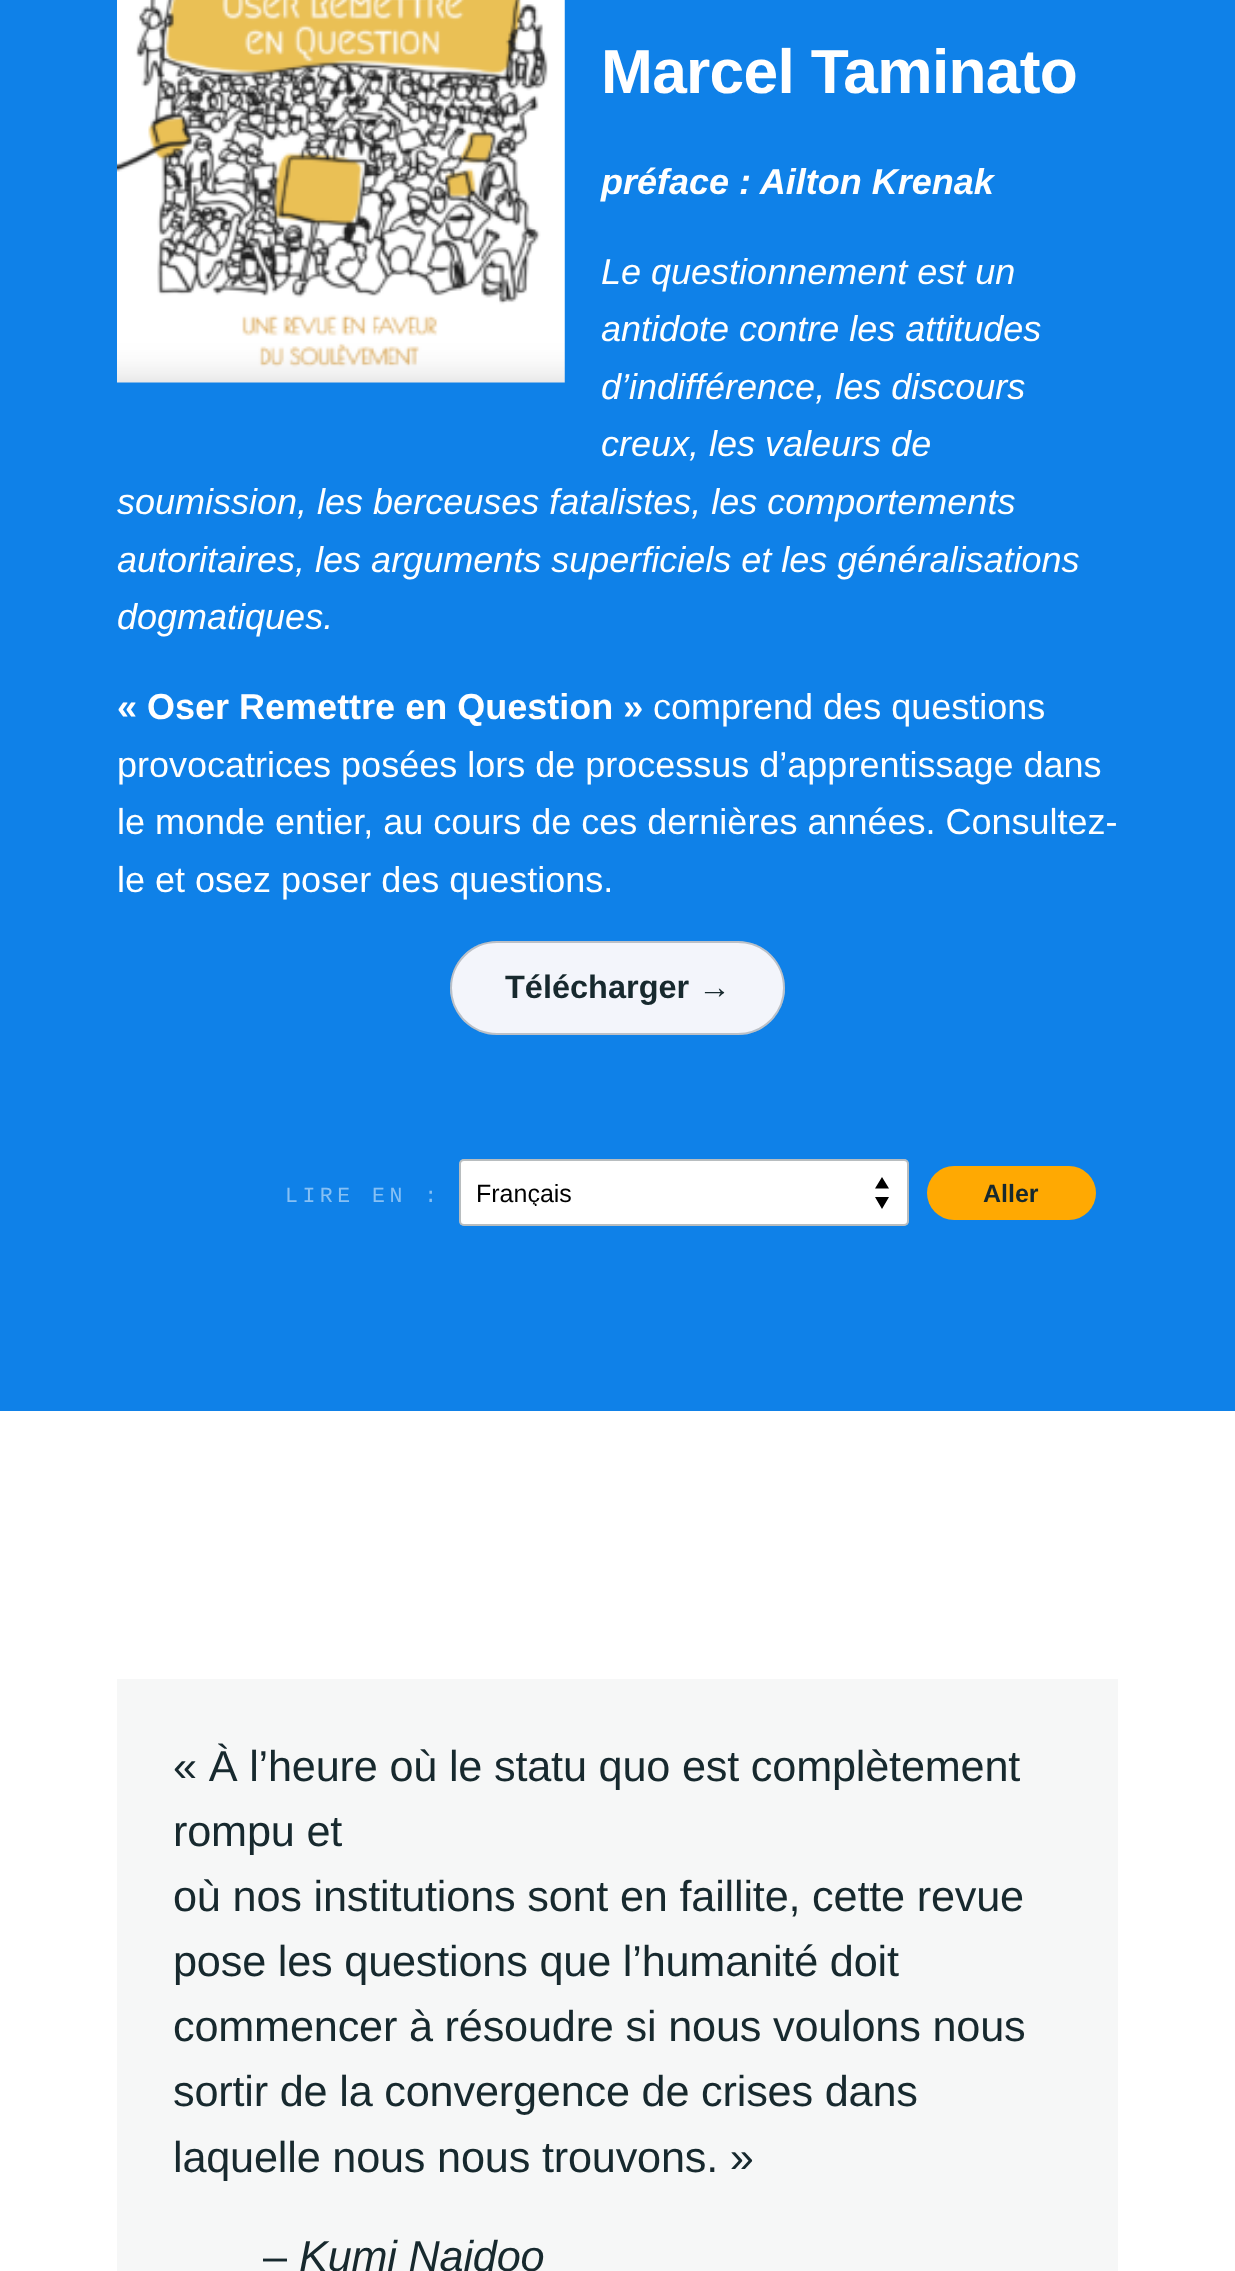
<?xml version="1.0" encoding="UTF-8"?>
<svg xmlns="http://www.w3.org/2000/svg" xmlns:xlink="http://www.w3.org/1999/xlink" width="1235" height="2271">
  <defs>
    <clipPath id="clip1"><rect x="477" y="1179" width="414" height="27" /></clipPath>
  </defs>
  <rect width="100%" height="100%" fill="#0f81e8" />
  <image x="117" y="0" width="448" height="383" xlink:href="image1.png" />
  <rect x="450" y="941" width="335" height="94" rx="47" fill="#f3f5fb" />
  <rect x="451" y="942" width="333" height="92" rx="46" fill="none" stroke="#15242b" stroke-opacity="0.25" stroke-width="2" />
  <rect x="459" y="1159" width="450" height="67" rx="5" fill="#ffffff" />
  <path d="M 882 1177 l -7 11.5 h 14 z m 0 32 l 7 -12 h -14 z" fill="#000000" />
  <rect x="460" y="1160" width="448" height="65" rx="4" fill="none" stroke="#15242b" stroke-opacity="0.3" stroke-width="2" />
  <rect x="927" y="1166" width="169" height="54" rx="27" fill="#ffa902" />
  <rect y="1411" width="1235" height="860" fill="#ffffff" />
  <rect x="117" y="1679" width="1001" height="592" fill="#f6f7f7" />
  <text x="601" y="93" style="font-family: Liberation Sans; font-size: 62.25px; font-weight: bold; letter-spacing: -0.7px; fill: #ffffff">Marcel Taminato</text>
  <text x="601" y="194" style="font-family: Liberation Sans; font-size: 36px; font-weight: bold; font-style: italic; fill: #ffffff">préface : Ailton Krenak</text>
  <text x="601" y="284" style="font-family: Liberation Sans; font-size: 36px; font-style: italic; fill: #ffffff">Le questionnement est un</text>
  <text x="601" y="341" style="font-family: Liberation Sans; font-size: 36px; font-style: italic; fill: #ffffff">antidote contre les attitudes</text>
  <text x="601" y="399" style="font-family: Liberation Sans; font-size: 36px; font-style: italic; fill: #ffffff">d’indifférence, les discours</text>
  <text x="601" y="456" style="font-family: Liberation Sans; font-size: 36px; font-style: italic; fill: #ffffff">creux, les valeurs de</text>
  <text x="117" y="514" style="font-family: Liberation Sans; font-size: 36px; font-style: italic; fill: #ffffff">soumission, les berceuses fatalistes, les comportements</text>
  <text x="117" y="572" style="font-family: Liberation Sans; font-size: 36px; font-style: italic; fill: #ffffff">autoritaires, les arguments superficiels et les généralisations</text>
  <text x="117" y="629" style="font-family: Liberation Sans; font-size: 36px; font-style: italic; fill: #ffffff">dogmatiques.</text>
  <text x="117" y="719" style="font-family: Liberation Sans; font-size: 36px; font-weight: bold; fill: #ffffff">« Oser Remettre en Question »</text>
  <text x="653" y="719" style="font-family: Liberation Sans; font-size: 36px; fill: #ffffff">comprend des questions</text>
  <text x="117" y="777" style="font-family: Liberation Sans; font-size: 36px; fill: #ffffff">provocatrices posées lors de processus d’apprentissage dans</text>
  <text x="117" y="834" style="font-family: Liberation Sans; font-size: 36px; fill: #ffffff">le monde entier, au cours de ces dernières années. Consultez-</text>
  <text x="117" y="892" style="font-family: Liberation Sans; font-size: 36px; fill: #ffffff">le et osez poser des questions.</text>
  <text x="505" y="998" style="font-family: Liberation Sans; font-size: 32.5px; font-weight: bold; fill: #17292e">Télécharger →</text>
  <text x="285" y="1202" style="font-family: Liberation Mono; font-size: 21.5px; letter-spacing: 4.5px; fill: #87c0f4">LIRE EN :</text>
  <g clip-path="url(#clip1)">
    <text x="476" y="1202" style="font-family: Liberation Sans; font-size: 25px; fill: #000000">Français</text>
  </g>
  <text x="983" y="1202" style="font-family: Liberation Sans; font-size: 25px; font-weight: bold; fill: #17292e">Aller</text>
  <text x="173" y="1781" style="font-family: Liberation Sans; font-size: 43.25px; letter-spacing: -0.2px; fill: #17292e">« À l’heure où le statu quo est complètement</text>
  <text x="173" y="1846" style="font-family: Liberation Sans; font-size: 43.25px; letter-spacing: -0.2px; fill: #17292e">rompu et</text>
  <text x="173" y="1911" style="font-family: Liberation Sans; font-size: 43.25px; letter-spacing: -0.2px; fill: #17292e">où nos institutions sont en faillite, cette revue</text>
  <text x="173" y="1976" style="font-family: Liberation Sans; font-size: 43.25px; letter-spacing: -0.2px; fill: #17292e">pose les questions que l’humanité doit</text>
  <text x="173" y="2041" style="font-family: Liberation Sans; font-size: 43.25px; letter-spacing: -0.2px; fill: #17292e">commencer à résoudre si nous voulons nous</text>
  <text x="173" y="2106" style="font-family: Liberation Sans; font-size: 43.25px; letter-spacing: -0.2px; fill: #17292e">sortir de la convergence de crises dans</text>
  <text x="173" y="2172" style="font-family: Liberation Sans; font-size: 43.25px; letter-spacing: -0.2px; fill: #17292e">laquelle nous nous trouvons. »</text>
  <text x="263" y="2271" style="font-family: Liberation Sans; font-size: 43.25px; letter-spacing: -0.2px; fill: #17292e">–</text>
  <text x="299" y="2271" style="font-family: Liberation Sans; font-size: 43.25px; font-style: italic; letter-spacing: -0.2px; fill: #17292e">Kumi Naidoo</text>
</svg>
